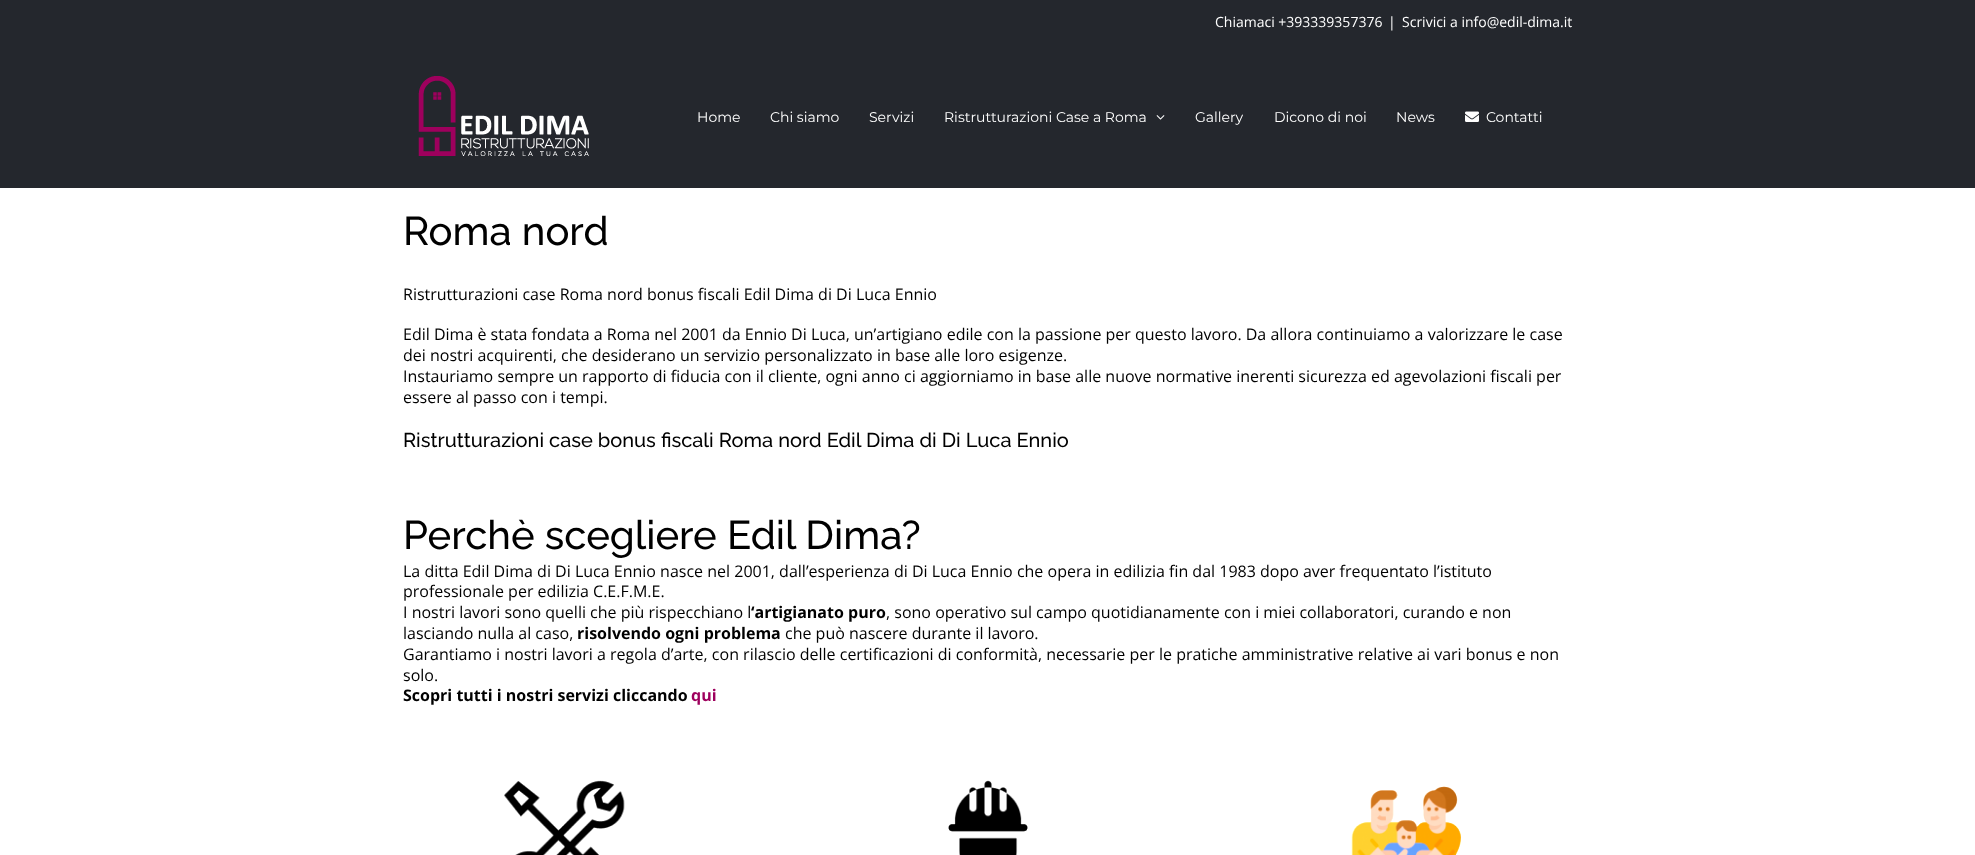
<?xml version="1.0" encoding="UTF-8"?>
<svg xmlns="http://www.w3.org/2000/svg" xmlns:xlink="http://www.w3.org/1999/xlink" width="1975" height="855">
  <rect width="100%" height="100%" fill="#ffffff" />
  <rect width="1975" height="188" fill="#24272d" />
  <image x="418" y="76" width="171" height="80" xlink:href="image1.png" />
  <image x="1156" y="115" width="9" height="5" xlink:href="image2.png" />
  <image x="1465" y="111" width="14" height="11" xlink:href="image3.png" />
  <image x="504" y="780" width="957" height="75" xlink:href="image4.png" />
  <text x="1215" y="27" style="font-family: Open Sans; font-size: 14px; fill: #ffffff">Chiamaci +393339357376</text>
  <text x="1388" y="27" style="font-family: Open Sans; font-size: 14px; fill: #ffffff">|</text>
  <text x="1402" y="27" style="font-family: Open Sans; font-size: 14px; fill: #ffffff">Scrivici a info@edil-dima.it</text>
  <text x="697" y="122" style="font-family: Montserrat; font-size: 14px; font-weight: 100; fill: #ffffff">Home</text>
  <text x="770" y="122" style="font-family: Montserrat; font-size: 14px; font-weight: 100; fill: #ffffff">Chi siamo</text>
  <text x="869" y="122" style="font-family: Montserrat; font-size: 14px; font-weight: 100; fill: #ffffff">Servizi</text>
  <text x="944" y="122" style="font-family: Montserrat; font-size: 14px; font-weight: 100; fill: #ffffff">Ristrutturazioni Case a Roma</text>
  <text x="1195" y="122" style="font-family: Montserrat; font-size: 14px; font-weight: 100; fill: #ffffff">Gallery</text>
  <text x="1274" y="122" style="font-family: Montserrat; font-size: 14px; font-weight: 100; fill: #ffffff">Dicono di noi</text>
  <text x="1396" y="122" style="font-family: Montserrat; font-size: 14px; font-weight: 100; fill: #ffffff">News</text>
  <text x="1486" y="122" style="font-family: Montserrat; font-size: 14px; font-weight: 100; fill: #ffffff">Contatti</text>
  <text x="403" y="245" style="font-family: Raleway; font-size: 40px; font-weight: 100; fill: #000000">Roma nord</text>
  <text x="403" y="300" style="font-family: Open Sans; font-size: 16px; fill: #000000">Ristrutturazioni case Roma nord bonus fiscali Edil Dima di Di Luca Ennio</text>
  <text x="403" y="340" style="font-family: Open Sans; font-size: 16px; fill: #000000">Edil Dima è stata fondata a Roma nel 2001 da Ennio Di Luca, un’artigiano edile con la passione per questo lavoro. Da allora continuiamo a valorizzare le case</text>
  <text x="403" y="361" style="font-family: Open Sans; font-size: 16px; fill: #000000">dei nostri acquirenti, che desiderano un servizio personalizzato in base alle loro esigenze.</text>
  <text x="403" y="382" style="font-family: Open Sans; font-size: 16px; fill: #000000">Instauriamo sempre un rapporto di fiducia con il cliente, ogni anno ci aggiorniamo in base alle nuove normative inerenti sicurezza ed agevolazioni fiscali per</text>
  <text x="403" y="403" style="font-family: Open Sans; font-size: 16px; fill: #000000">essere al passo con i tempi.</text>
  <text x="403" y="447" style="font-family: Raleway; font-size: 20px; font-weight: 100; fill: #000000">Ristrutturazioni case bonus fiscali Roma nord Edil Dima di Di Luca Ennio</text>
  <text x="403" y="549" style="font-family: Raleway; font-size: 40px; font-weight: 100; fill: #000000">Perchè scegliere Edil Dima?</text>
  <text x="403" y="577" style="font-family: Open Sans; font-size: 16px; fill: #000000">La ditta Edil Dima di Di Luca Ennio nasce nel 2001, dall’esperienza di Di Luca Ennio che opera in edilizia fin dal 1983 dopo aver frequentato l’istituto</text>
  <text x="403" y="597" style="font-family: Open Sans; font-size: 16px; fill: #000000">professionale per edilizia C.E.F.M.E.</text>
  <text x="403" y="618" style="font-family: Open Sans; font-size: 16px; fill: #000000">I nostri lavori sono quelli che più rispecchiano l</text>
  <text x="751" y="618" style="font-family: Open Sans; font-size: 16px; font-weight: bold; fill: #000000">‘artigianato puro</text>
  <text x="886" y="618" style="font-family: Open Sans; font-size: 16px; fill: #000000">, sono operativo sul campo quotidianamente con i miei collaboratori, curando e non</text>
  <text x="403" y="639" style="font-family: Open Sans; font-size: 16px; fill: #000000">lasciando nulla al caso,</text>
  <text x="577" y="639" style="font-family: Open Sans; font-size: 16px; font-weight: bold; fill: #000000">risolvendo ogni problema</text>
  <text x="785" y="639" style="font-family: Open Sans; font-size: 16px; fill: #000000">che può nascere durante il lavoro.</text>
  <text x="403" y="660" style="font-family: Open Sans; font-size: 16px; fill: #000000">Garantiamo i nostri lavori a regola d’arte, con rilascio delle certificazioni di conformità, necessarie per le pratiche amministrative relative ai vari bonus e non</text>
  <text x="403" y="681" style="font-family: Open Sans; font-size: 16px; fill: #000000">solo.</text>
  <text x="403" y="701" style="font-family: Open Sans; font-size: 16px; font-weight: bold; fill: #000000">Scopri tutti i nostri servizi cliccando</text>
  <text x="691" y="701" style="font-family: Open Sans; font-size: 16px; font-weight: bold; fill: #9e005d">qui</text>
</svg>
